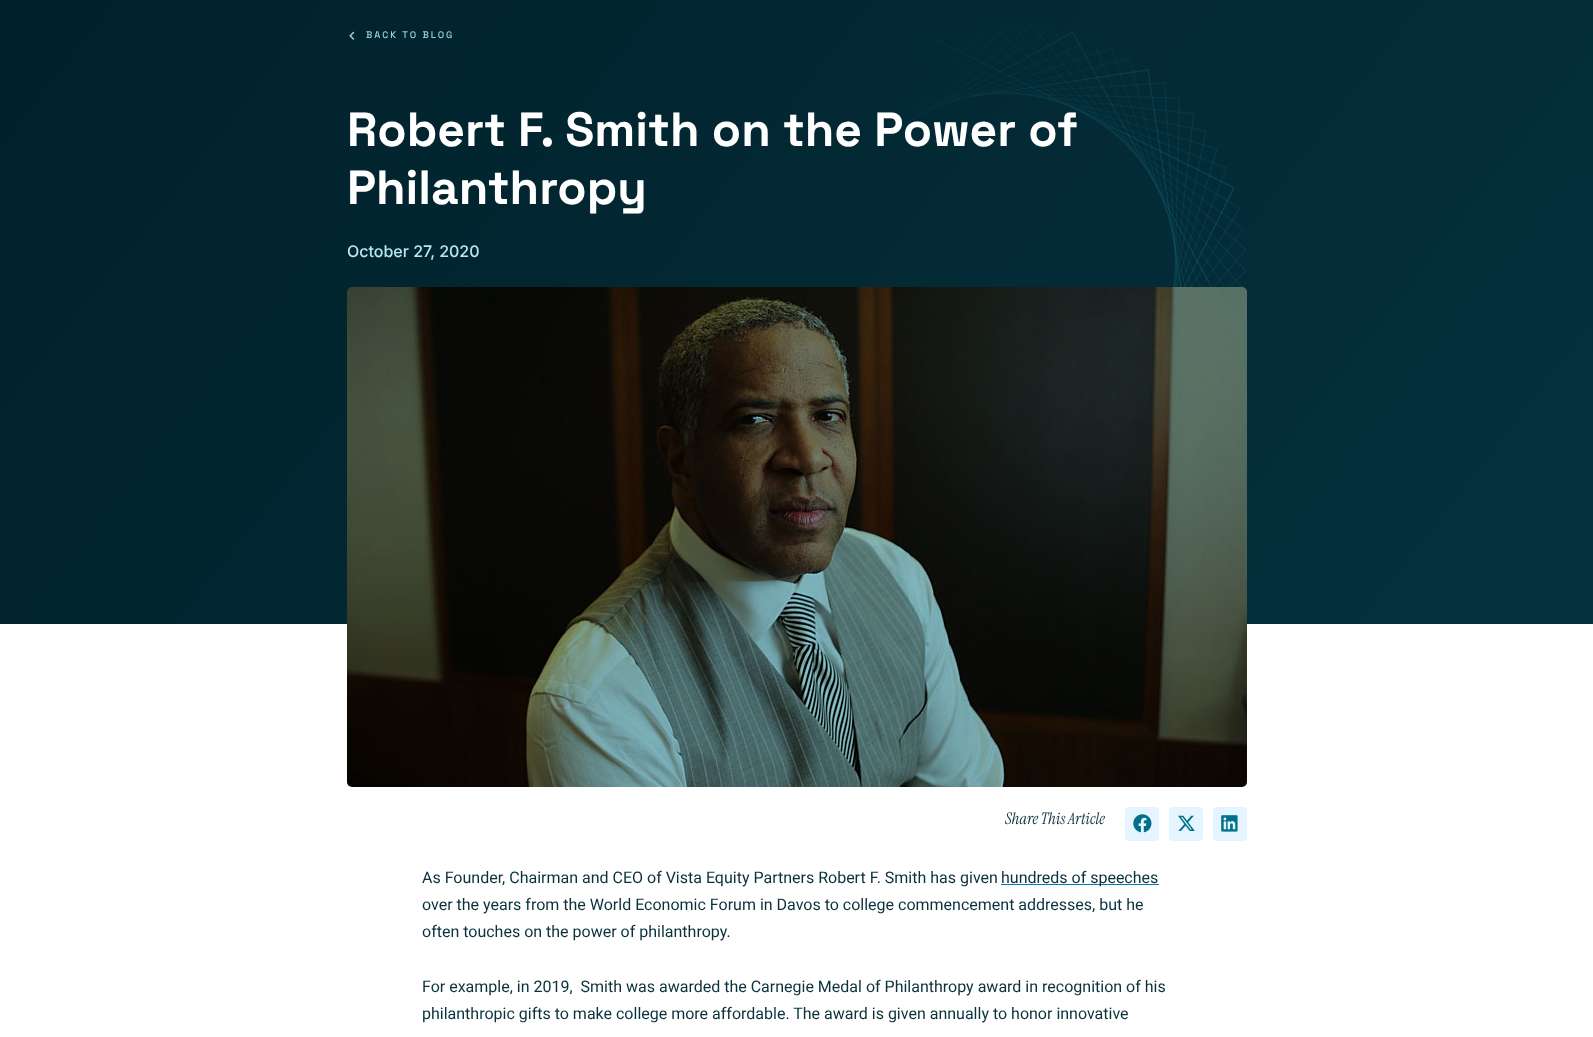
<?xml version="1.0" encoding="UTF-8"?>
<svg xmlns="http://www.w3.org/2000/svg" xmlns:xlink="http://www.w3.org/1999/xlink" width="1593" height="1037">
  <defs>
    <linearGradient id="g1" gradientUnits="userSpaceOnUse" x1="113" y1="-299" x2="1480" y2="769"><stop offset="0" stop-color="#002029" /><stop offset="1" stop-color="#05313e" /></linearGradient>
  </defs>
  <rect width="100%" height="100%" fill="#ffffff" />
  <rect width="1593" height="624" fill="url(#g1)" />
  <image x="874" y="23" width="373" height="265" xlink:href="image1.png" />
  <image x="349" y="31" width="6" height="9" xlink:href="image2.png" />
  <image x="347" y="287" width="900" height="500" xlink:href="image3.png" />
  <rect x="1125" y="807" width="34" height="34" rx="4" fill="#e4f5ff" />
  <image x="1133" y="814" width="19" height="19" xlink:href="image4.png" />
  <rect x="1169" y="807" width="34" height="34" rx="4" fill="#e4f5ff" />
  <image x="1178" y="815" width="17" height="16" xlink:href="image5.png" />
  <rect x="1213" y="807" width="34" height="34" rx="4" fill="#e4f5ff" />
  <image x="1221" y="815" width="17" height="17" xlink:href="image6.png" />
  <rect x="1001" y="884" width="158" height="1" fill="#007bc2" />
  <text x="366" y="38" style="font-family: Space Grotesk; font-size: 9.5px; font-weight: 500; letter-spacing: 2px; fill: #97cfda">BACK TO BLOG</text>
  <text x="347" y="146" style="font-family: Space Grotesk; font-size: 48px; font-weight: bold; fill: #ffffff">Robert F. Smith on the Power of</text>
  <text x="347" y="204" style="font-family: Space Grotesk; font-size: 48px; font-weight: bold; fill: #ffffff">Philanthropy</text>
  <text x="347" y="257" style="font-family: Inter; font-size: 16px; font-weight: 500; fill: #b8e7f4">October 27, 2020</text>
  <text x="1005" y="824" style="font-family: Instrument Serif; font-size: 16px; font-style: italic; fill: #0a323c">Share This Article</text>
  <text x="422" y="883" style="font-family: Roboto; font-size: 16px; fill: #0a323c">As Founder, Chairman and CEO of Vista Equity Partners Robert F. Smith has given</text>
  <text x="1001" y="883" style="font-family: Roboto; font-size: 16px; fill: #0a323c">hundreds of speeches</text>
  <text x="422" y="910" style="font-family: Roboto; font-size: 16px; fill: #0a323c">over the years from the World Economic Forum in Davos to college commencement addresses, but he</text>
  <text x="422" y="937" style="font-family: Roboto; font-size: 16px; fill: #0a323c">often touches on the power of philanthropy.</text>
  <text x="422" y="992" style="font-family: Roboto; font-size: 16px; fill: #0a323c" xml:space="preserve">For example, in 2019,  Smith was awarded the Carnegie Medal of Philanthropy award in recognition of his</text>
  <text x="422" y="1019" style="font-family: Roboto; font-size: 16px; fill: #0a323c">philanthropic gifts to make college more affordable. The award is given annually to honor innovative</text>
</svg>
